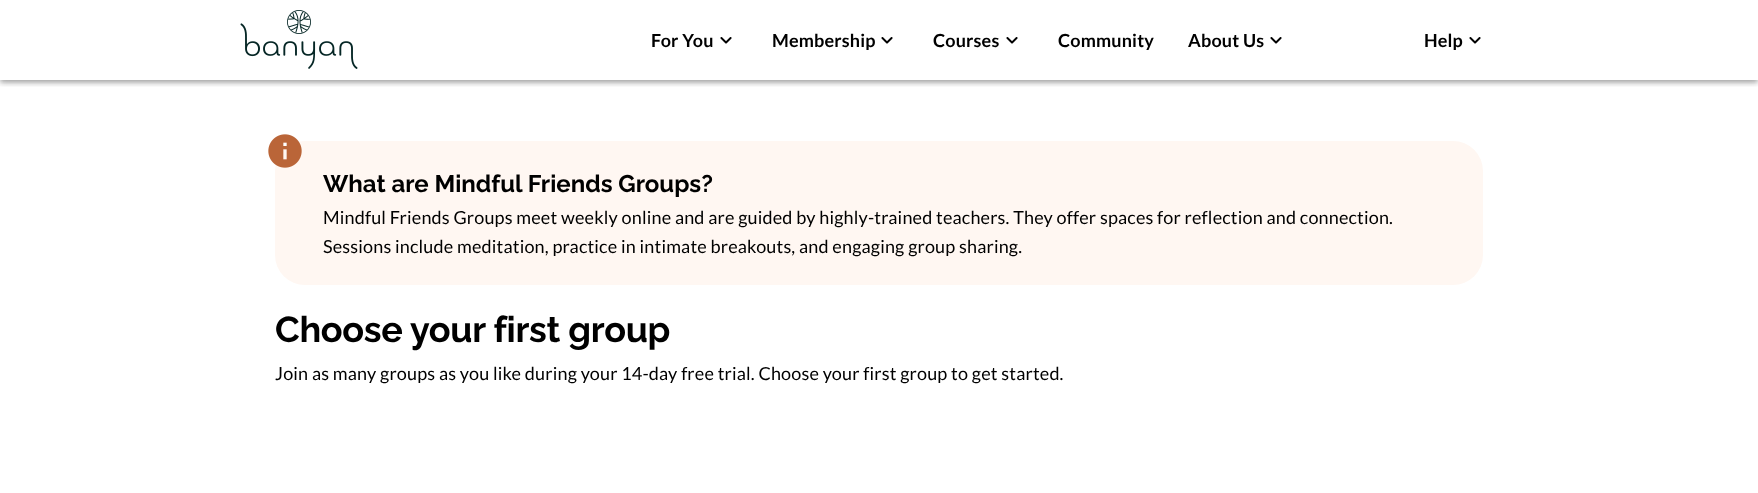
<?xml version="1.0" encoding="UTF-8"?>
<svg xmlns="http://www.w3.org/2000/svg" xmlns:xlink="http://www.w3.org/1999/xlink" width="1758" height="493">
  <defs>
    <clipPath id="clip1"><rect x="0" y="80" width="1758" height="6" /></clipPath>
    <clipPath id="clip2"><rect x="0" y="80" width="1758" height="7" /></clipPath>
    <clipPath id="clip3"><rect x="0" y="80" width="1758" height="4" /></clipPath>
  </defs>
  <rect width="100%" height="100%" fill="#ffffff" />
  <g clip-path="url(#clip1)">
    <rect y="1" width="1758" height="80" fill="#000000" fill-opacity="0.12" filter="blur(5px)" />
  </g>
  <g clip-path="url(#clip2)">
    <rect y="4" width="1758" height="80" fill="#000000" fill-opacity="0.14" filter="blur(2.5px)" />
  </g>
  <g clip-path="url(#clip3)">
    <rect x="1" y="3" width="1756" height="78" fill="#000000" fill-opacity="0.2" filter="blur(2px)" />
  </g>
  <image x="240" y="10" width="118" height="59" xlink:href="image1.png" />
  <image x="720" y="37" width="12" height="7" xlink:href="image2.png" />
  <image x="881" y="37" width="12" height="7" xlink:href="image2.png" />
  <image x="1006" y="37" width="12" height="7" xlink:href="image2.png" />
  <image x="1270" y="37" width="12" height="7" xlink:href="image2.png" />
  <image x="1469" y="37" width="12" height="7" xlink:href="image2.png" />
  <rect x="275" y="141" width="1208" height="144" rx="30" fill="#fff7f2" />
  <image x="268" y="134" width="34" height="34" xlink:href="image3.png" />
  <text x="651" y="47" style="font-family: Lato; font-size: 18px; font-weight: bold; letter-spacing: 0.17px; fill: #000000">For You</text>
  <text x="772" y="47" style="font-family: Lato; font-size: 18px; font-weight: bold; letter-spacing: 0.17px; fill: #000000">Membership</text>
  <text x="933" y="47" style="font-family: Lato; font-size: 18px; font-weight: bold; letter-spacing: 0.17px; fill: #000000">Courses</text>
  <text x="1058" y="47" style="font-family: Lato; font-size: 18px; font-weight: bold; letter-spacing: 0.17px; fill: #000000">Community</text>
  <text x="1188" y="47" style="font-family: Lato; font-size: 18px; font-weight: bold; letter-spacing: 0.17px; fill: #000000">About Us</text>
  <text x="1424" y="47" style="font-family: Lato; font-size: 18px; font-weight: bold; letter-spacing: 0.17px; fill: #000000">Help</text>
  <text x="323" y="192" style="font-family: Raleway; font-size: 24px; font-weight: bold; fill: #000000">What are Mindful Friends Groups?</text>
  <text x="323" y="224" style="font-family: Lato; font-size: 18px; letter-spacing: 0.17px; fill: #000000">Mindful Friends Groups meet weekly online and are guided by highly-trained teachers. They offer spaces for reflection and connection.</text>
  <text x="323" y="253" style="font-family: Lato; font-size: 18px; letter-spacing: 0.17px; fill: #000000">Sessions include meditation, practice in intimate breakouts, and engaging group sharing.</text>
  <text x="275" y="342" style="font-family: Raleway; font-size: 36px; font-weight: bold; letter-spacing: -0.3px; fill: #000000">Choose your first group</text>
  <text x="275" y="380" style="font-family: Lato; font-size: 18px; letter-spacing: 0.17px; fill: #000000">Join as many groups as you like during your 14-day free trial. Choose your first group to get started.</text>
</svg>
